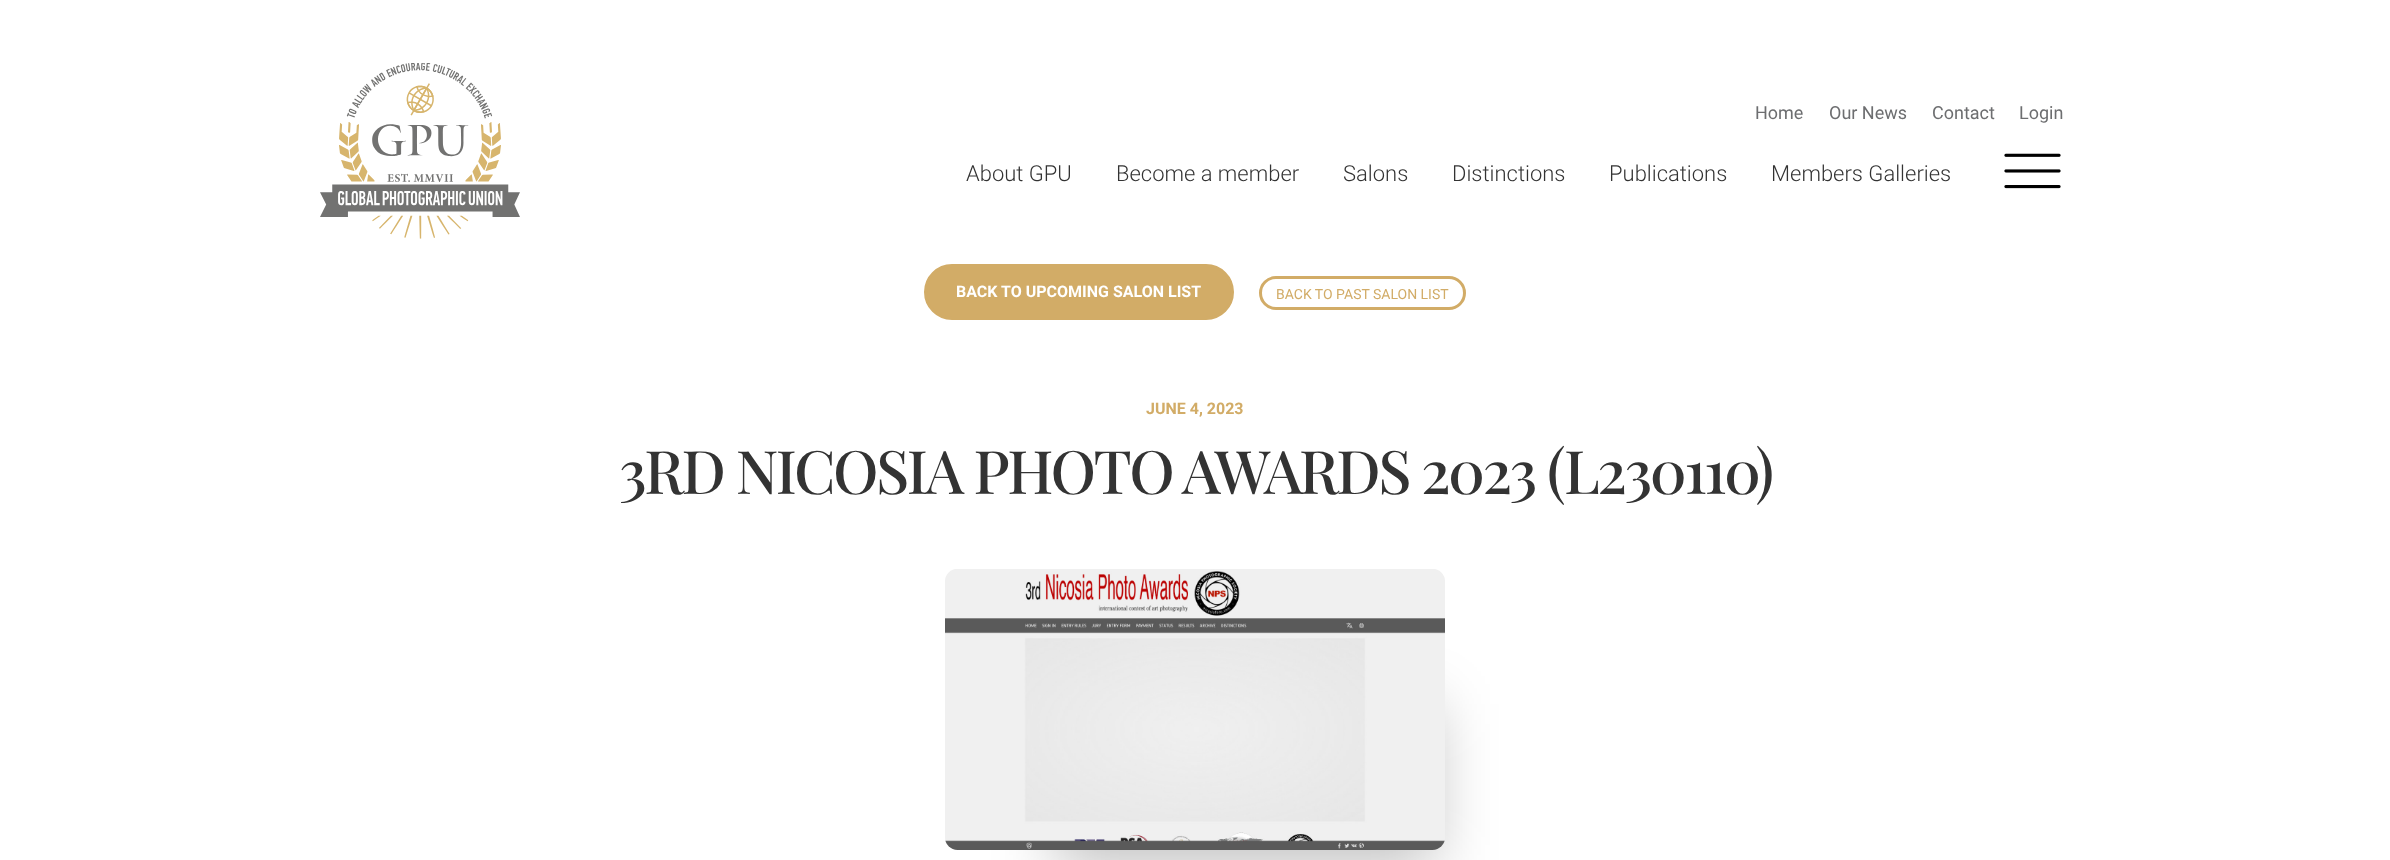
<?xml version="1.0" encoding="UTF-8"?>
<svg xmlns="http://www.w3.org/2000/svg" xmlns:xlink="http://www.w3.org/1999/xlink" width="2390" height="860">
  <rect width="100%" height="100%" fill="#ffffff" />
  <image x="320" y="63" width="200" height="176" xlink:href="image1.png" />
  <image x="2004" y="153" width="57" height="36" xlink:href="image2.png" />
  <rect x="925.5" y="265.5" width="307" height="53" rx="26.5" fill="#d2ac67" stroke="#d2ac67" stroke-width="3" />
  <rect x="1260.5" y="277.5" width="204" height="31" rx="15.5" fill="none" stroke="#d2ac67" stroke-width="3" />
  <rect x="1055" y="704" width="380" height="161" fill="#000000" fill-opacity="0.25" filter="blur(30px)" />
  <image x="945" y="569" width="500" height="281" xlink:href="image3.png" />
  <text x="1755" y="119" style="font-family: Roboto; font-size: 18px; fill: #6d6e70">Home</text>
  <text x="1829" y="119" style="font-family: Roboto; font-size: 18px; fill: #6d6e70">Our News</text>
  <text x="1932" y="119" style="font-family: Roboto; font-size: 18px; fill: #6d6e70">Contact</text>
  <text x="2019" y="119" style="font-family: Roboto; font-size: 18px; fill: #6d6e70">Login</text>
  <text x="966" y="181" style="font-family: Roboto; font-size: 22px; font-weight: 300; fill: #333333">About GPU</text>
  <text x="1116" y="181" style="font-family: Roboto; font-size: 22px; font-weight: 300; fill: #333333">Become a member</text>
  <text x="1343" y="181" style="font-family: Roboto; font-size: 22px; font-weight: 300; fill: #333333">Salons</text>
  <text x="1452" y="181" style="font-family: Roboto; font-size: 22px; font-weight: 300; fill: #333333">Distinctions</text>
  <text x="1609" y="181" style="font-family: Roboto; font-size: 22px; font-weight: 300; fill: #333333">Publications</text>
  <text x="1771" y="181" style="font-family: Roboto; font-size: 22px; font-weight: 300; fill: #333333">Members Galleries</text>
  <text x="956" y="297" style="font-family: Roboto; font-size: 16px; font-weight: bold; fill: #ffffff">BACK TO UPCOMING SALON LIST</text>
  <text x="1276" y="299" style="font-family: Roboto; font-size: 14px; fill: #d2ac67">BACK TO PAST SALON LIST</text>
  <text x="1146" y="414" style="font-family: Roboto; font-size: 16px; font-weight: bold; fill: #d2ac67">JUNE 4, 2023</text>
  <text x="619" y="494" style="font-family: Playfair Display; font-size: 60px; font-weight: 500; letter-spacing: -2.5px; fill: #333333">3RD NICOSIA PHOTO AWARDS 2023 (L230110)</text>
</svg>
